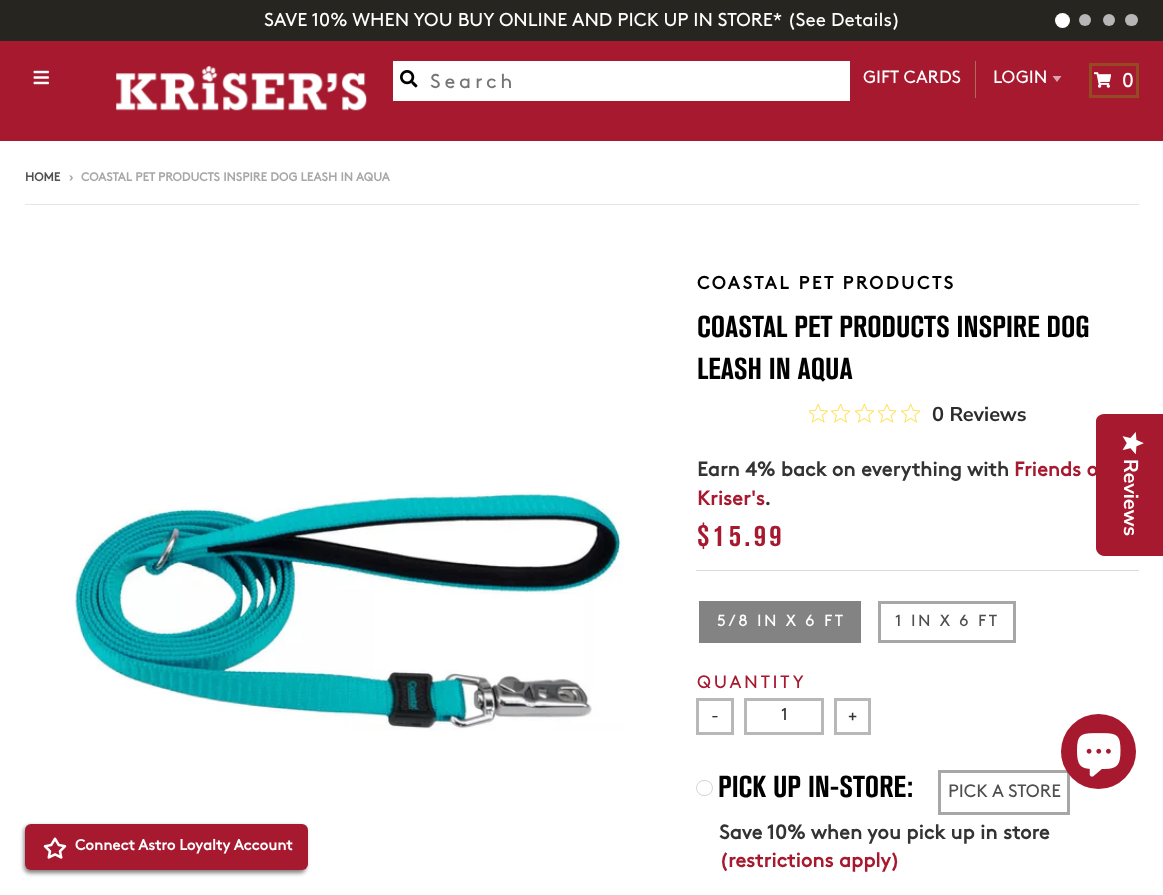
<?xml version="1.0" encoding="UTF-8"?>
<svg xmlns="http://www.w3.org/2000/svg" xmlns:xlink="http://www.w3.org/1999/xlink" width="1163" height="895">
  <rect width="100%" height="100%" fill="#ffffff" />
  <rect width="1163" height="41" fill="#27251f" />
  <circle cx="1062.5" cy="20.5" r="7.5" fill="#ffffff" />
  <circle cx="1085" cy="20" r="6" fill="#b6b6b6" />
  <circle cx="1109" cy="20" r="6" fill="#b6b6b6" />
  <rect x="1125" y="14" width="13" height="12" rx="6" fill="#b6b6b6" />
  <rect y="41" width="1163" height="100" fill="#a6192e" />
  <image x="33" y="70" width="16" height="15" xlink:href="image1.png" />
  <image x="116" y="66" width="251" height="45" xlink:href="image2.png" />
  <rect x="393" y="61" width="457" height="40" fill="#ffffff" />
  <image x="400" y="70" width="18" height="18" xlink:href="image3.png" />
  <rect x="975" y="61" width="1" height="37" fill="#a96f4f" />
  <path d="M 1052.5 76 l 4.5 6 l 4.5 -6 z" fill="#dba3ab" />
  <rect x="1090.5" y="64.5" width="47" height="32" fill="none" stroke="#944b23" stroke-width="3" />
  <image x="1094" y="72" width="17" height="16" xlink:href="image4.png" />
  <rect x="25" y="204" width="1114" height="1" fill="#e5e5e5" />
  <image x="73" y="492" width="550" height="239" xlink:href="image5.png" />
  <image x="809" y="404" width="19" height="19" xlink:href="image6.png" />
  <image x="831" y="404" width="19" height="19" xlink:href="image7.png" />
  <image x="855" y="404" width="19" height="19" xlink:href="image8.png" />
  <image x="878" y="404" width="18" height="19" xlink:href="image9.png" />
  <image x="901" y="404" width="19" height="19" xlink:href="image7.png" />
  <rect x="696" y="570" width="443" height="1" fill="#dadada" />
  <rect x="699" y="601" width="162" height="42" fill="#838383" />
  <rect x="879.5" y="602.5" width="135" height="39" fill="none" stroke="#a7a7a7" stroke-width="3" />
  <rect x="697.5" y="699.5" width="35" height="34" fill="none" stroke="#b8b8b8" stroke-width="3" />
  <rect x="745.5" y="699.5" width="77" height="34" fill="none" stroke="#b8b8b8" stroke-width="3" />
  <rect x="835.5" y="699.5" width="34" height="34" fill="none" stroke="#b8b8b8" stroke-width="3" />
  <rect x="696.5" y="780.5" width="16" height="15" rx="7.5" fill="none" stroke="#d6d6d6" />
  <rect x="939.5" y="771.5" width="129" height="42" fill="none" stroke="#a7a7a7" stroke-width="3" />
  <path d="M 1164 414 v 142 h -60 c -4 0 -8 -4 -8 -8 v -127 c 0 -4 4 -7 8 -7 z" fill="#a6192e" />
  <image x="1122" y="432" width="22" height="23" xlink:href="image10.png" />
  <circle cx="1098.5" cy="751.5" r="37.5" fill="#a6192e" />
  <image x="1077" y="733" width="44" height="44" xlink:href="image11.png" />
  <rect x="24" y="826" width="282" height="47" rx="6" fill="#000000" fill-opacity="0.5" filter="blur(2px)" />
  <rect x="25" y="824" width="283" height="46" rx="6" fill="#a6192e" />
  <image x="43" y="837" width="24" height="22" xlink:href="image12.png" />
  <text x="264" y="26" style="font-family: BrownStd; font-size: 18.75px; fill: #ffffff">SAVE 10% WHEN YOU BUY ONLINE AND PICK UP IN STORE* (See Details)</text>
  <text x="430" y="88" style="font-family: BrownStd; font-size: 20px; letter-spacing: 3.75px; fill: #757575">Search</text>
  <text x="863" y="83" style="font-family: BrownStd; font-size: 17.75px; fill: #ffffff">GIFT CARDS</text>
  <text x="993" y="83" style="font-family: BrownStd; font-size: 17.75px; fill: #ffffff">LOGIN</text>
  <text x="1122" y="87" style="font-family: BrownStd; font-size: 20px; letter-spacing: 2.5px; fill: #ffffff">0</text>
  <text x="25" y="181" style="font-family: BrownStd; font-size: 12px; font-weight: bold; fill: #4f4f4f">HOME</text>
  <text x="69" y="181" style="font-family: BrownStd; font-size: 12px; font-weight: bold; fill: #a7a7a7">›</text>
  <text x="81" y="181" style="font-family: BrownStd; font-size: 12px; font-weight: bold; fill: #a7a7a7">COASTAL PET PRODUCTS INSPIRE DOG LEASH IN AQUA</text>
  <text x="697" y="289" style="font-family: BrownStd; font-size: 18px; font-weight: bold; letter-spacing: 2.5px; fill: #000000">COASTAL PET PRODUCTS</text>
  <text x="697" y="337" style="font-family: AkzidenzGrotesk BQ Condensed; font-size: 30px; font-weight: bold; fill: #000000">COASTAL PET PRODUCTS INSPIRE DOG</text>
  <text x="697" y="379" style="font-family: AkzidenzGrotesk BQ Condensed; font-size: 30px; font-weight: bold; fill: #000000">LEASH IN AQUA</text>
  <text x="932" y="421" style="font-family: Nunito Sans; font-size: 20px; font-weight: 200; fill: #2c2c2c">0 Reviews</text>
  <text x="697" y="476" style="font-family: BrownStd; font-size: 20px; font-weight: bold; fill: #333333">Earn 4% back on everything with</text>
  <text x="1014" y="476" style="font-family: BrownStd; font-size: 20px; font-weight: bold; fill: #a6192e">Friends o</text>
  <text x="697" y="505" style="font-family: BrownStd; font-size: 20px; font-weight: bold; fill: #a6192e">Kriser's</text>
  <text x="764" y="505" style="font-family: BrownStd; font-size: 20px; font-weight: bold; fill: #333333">.</text>
  <text x="697" y="546" style="font-family: AkzidenzGrotesk BQ Condensed; font-size: 30px; font-weight: bold; letter-spacing: 3.75px; fill: #a6192e">$15.99</text>
  <text x="717" y="626" style="font-family: BrownStd; font-size: 16.25px; letter-spacing: 2.5px; fill: #ffffff">5/8 IN X 6 FT</text>
  <text x="895" y="626" style="font-family: BrownStd; font-size: 16.25px; letter-spacing: 2.5px; fill: #4f4f4f">1 IN X 6 FT</text>
  <text x="697" y="688" style="font-family: BrownStd; font-size: 18px; letter-spacing: 2.75px; fill: #a6192e">QUANTITY</text>
  <text x="711" y="721" style="font-family: BrownStd; font-size: 17px; fill: #333333">-</text>
  <text x="781" y="720" style="font-family: BrownStd; font-size: 17px; fill: #333333">1</text>
  <text x="848" y="721" style="font-family: BrownStd; font-size: 17px; fill: #333333">+</text>
  <text x="718" y="797" style="font-family: AkzidenzGrotesk BQ Condensed; font-size: 30px; font-weight: bold; fill: #000000">PICK UP IN-STORE:</text>
  <text x="948" y="797" style="font-family: BrownStd; font-size: 18px; fill: #4f4f4f">PICK A STORE</text>
  <text x="719" y="839" style="font-family: BrownStd; font-size: 20px; font-weight: bold; fill: #333333">Save 10% when you pick up in store</text>
  <text x="719" y="867" style="font-family: BrownStd; font-size: 20px; font-weight: bold; fill: #a6192e">(restrictions apply)</text>
  <text x="1124" y="459" transform="rotate(90 1124 459)" style="font-family: Nunito Sans; font-size: 20px; font-weight: 200; fill: #ffffff">Reviews</text>
  <text x="75" y="850" style="font-family: BrownStd; font-size: 15px; font-weight: bold; fill: #ffffff">Connect Astro Loyalty Account</text>
</svg>
